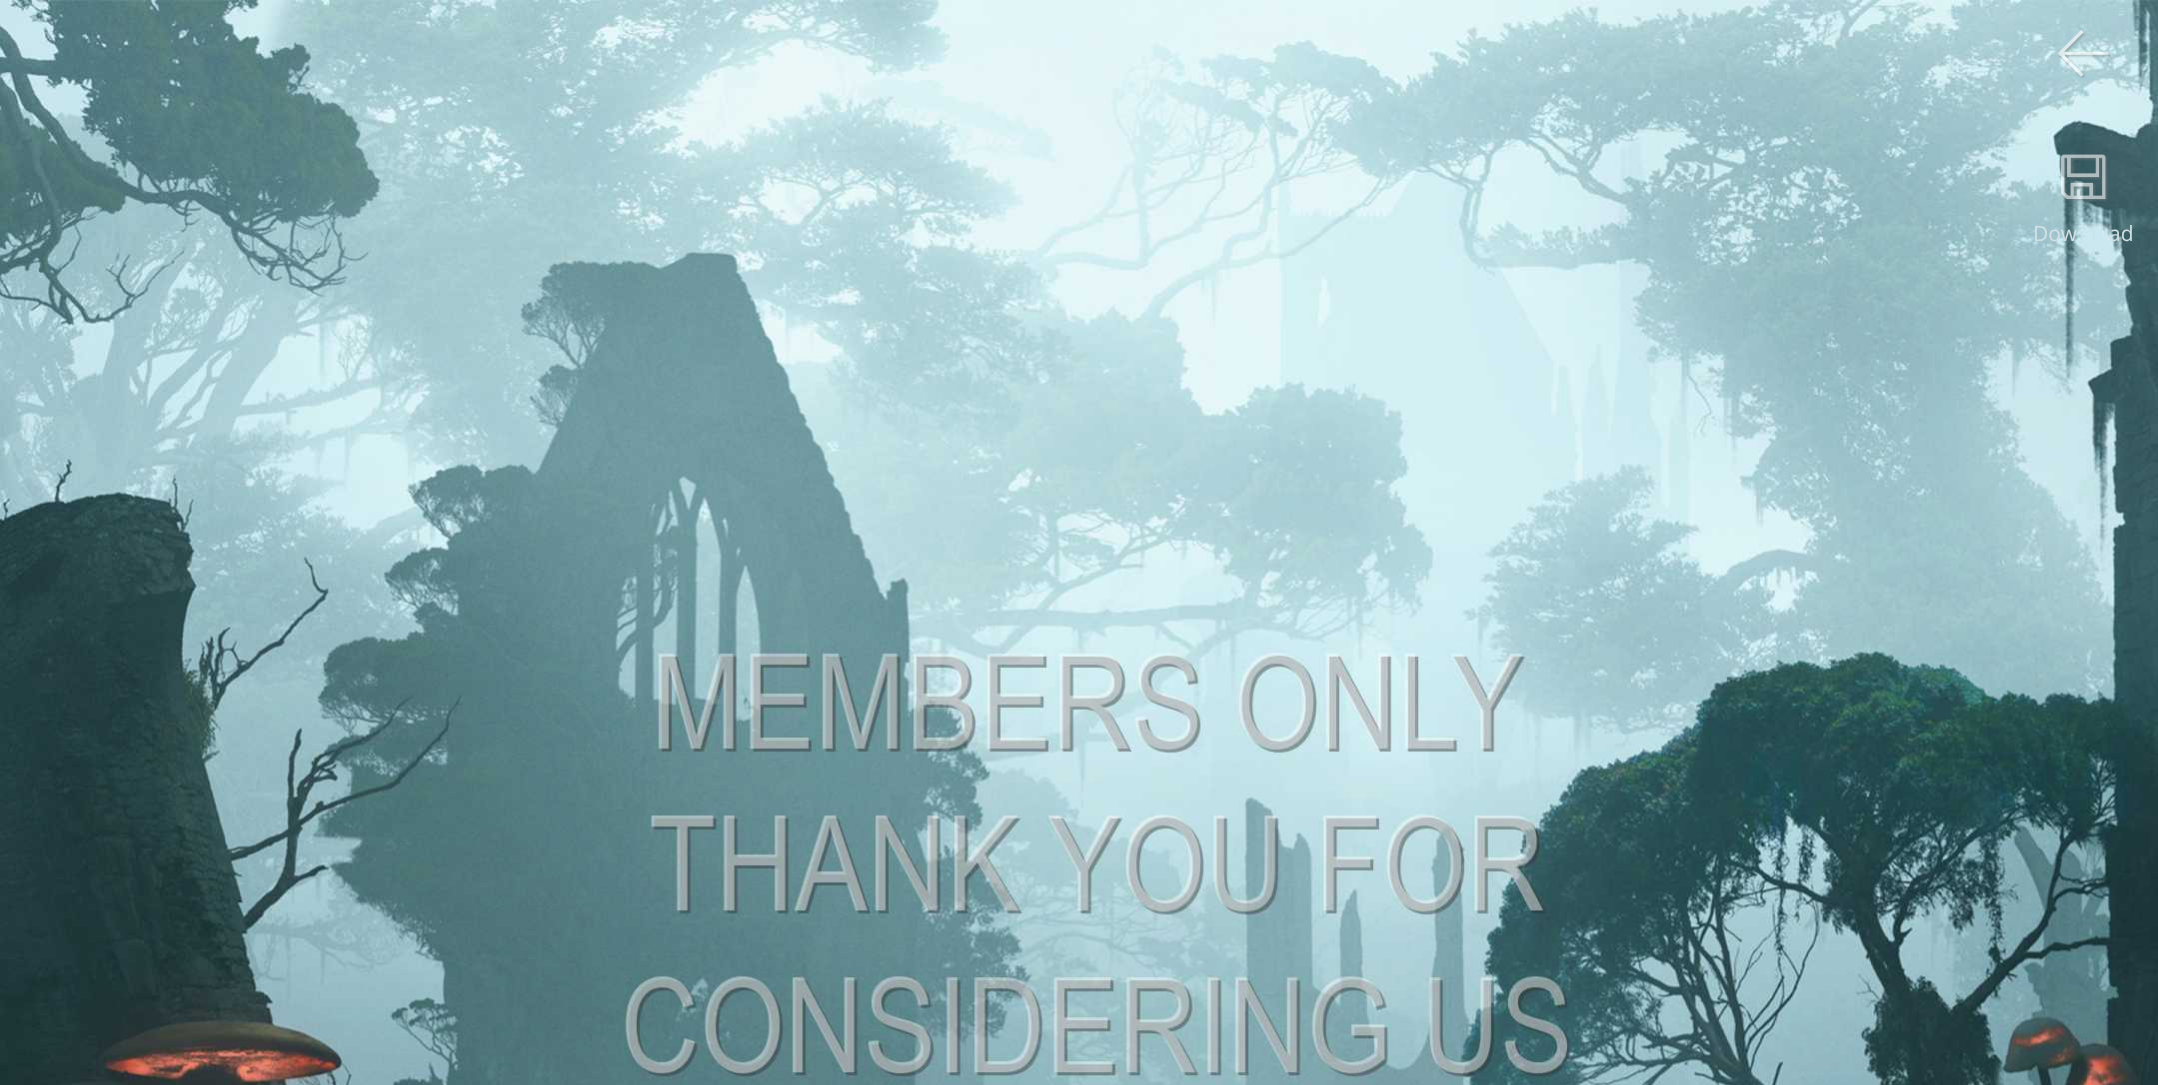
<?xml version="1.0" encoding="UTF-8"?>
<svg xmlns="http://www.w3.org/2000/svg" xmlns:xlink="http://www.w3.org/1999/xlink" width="2158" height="1085">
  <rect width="100%" height="100%" fill="#ffffff" />
  <image x="0" y="0" width="2158" height="1085" xlink:href="image1.png" />
  <image x="2057" y="29" width="54" height="50" xlink:href="image2.png" />
  <image x="2060" y="154" width="48" height="48" xlink:href="image3.png" />
  <text x="2033" y="241" style="font-family: Open Sans; font-size: 21px; fill: #d3e1e4">Dow</text>
  <text x="2109" y="241" style="font-family: Open Sans; font-size: 21px; fill: #d3e1e4">ad</text>
</svg>
